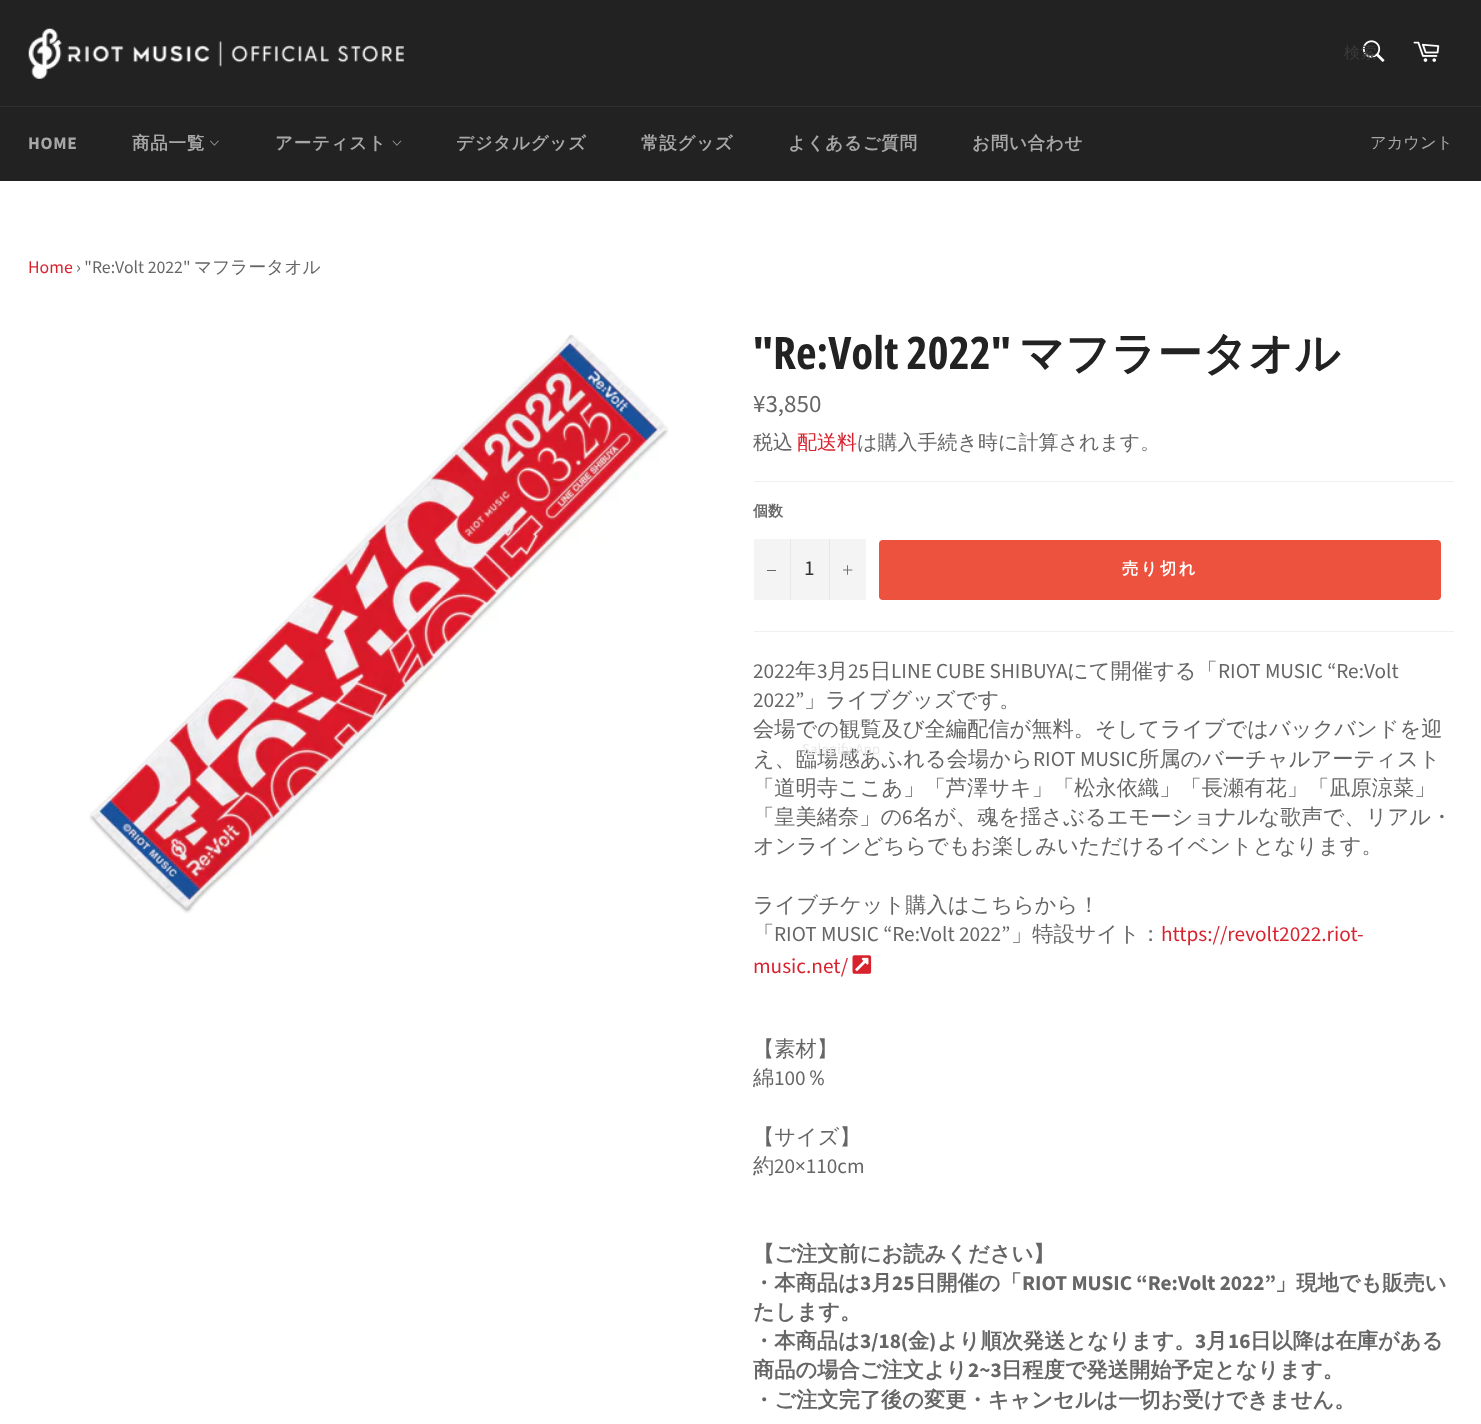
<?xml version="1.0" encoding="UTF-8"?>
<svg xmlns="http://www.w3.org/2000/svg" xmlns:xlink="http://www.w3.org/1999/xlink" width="1481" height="1424">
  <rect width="100%" height="100%" fill="#222222" />
  <image x="28" y="28" width="376" height="51" xlink:href="image1.png" />
  <image x="1362" y="40" width="23" height="22" xlink:href="image2.png" />
  <image x="1413" y="41" width="27" height="21" xlink:href="image3.png" />
  <rect y="106" width="1481" height="1" fill="#2f2f2f" />
  <image x="210" y="140" width="9" height="6" xlink:href="image4.png" />
  <image x="392" y="140" width="10" height="6" xlink:href="image5.png" />
  <rect y="181" width="1481" height="1243" fill="#ffffff" />
  <image x="89" y="334" width="580" height="580" xlink:href="image6.png" />
  <rect x="754" y="481" width="700" height="1" fill="#f0f0f0" />
  <rect x="754" y="539" width="112" height="61" fill="#f4f4f4" />
  <rect x="790" y="539" width="1" height="61" fill="#e7e7e7" />
  <rect x="767" y="570" width="9" height="1" fill="#666666" />
  <rect x="829" y="539" width="1" height="61" fill="#e7e7e7" />
  <image x="843" y="565" width="10" height="10" xlink:href="image7.png" />
  <rect x="879" y="540" width="562" height="60" rx="4" fill="#ec523e" />
  <rect x="754" y="631" width="700" height="1" fill="#f0f0f0" />
  <image x="852" y="955" width="20" height="19" xlink:href="image8.png" />
  <text x="1344" y="58" style="font-family: WenQuanYi Zen Hei; font-size: 16.25px; font-weight: 500; fill: #3a3a3a">検索</text>
  <text x="28" y="149" style="font-family: Source Sans Pro; font-size: 17.5px; font-weight: bold; letter-spacing: 0.75px; fill: #a7a7a7">HOME</text>
  <text x="132" y="149" style="font-family: WenQuanYi Zen Hei; font-size: 17.5px; font-weight: bold; letter-spacing: 0.75px; fill: #a7a7a7">商品一覧</text>
  <text x="275" y="149" style="font-family: WenQuanYi Zen Hei; font-size: 17.5px; font-weight: bold; letter-spacing: 0.75px; fill: #a7a7a7">アーティスト</text>
  <text x="456" y="149" style="font-family: WenQuanYi Zen Hei; font-size: 17.5px; font-weight: bold; letter-spacing: 0.75px; fill: #a7a7a7">デジタルグッズ</text>
  <text x="641" y="149" style="font-family: WenQuanYi Zen Hei; font-size: 17.5px; font-weight: bold; letter-spacing: 0.75px; fill: #a7a7a7">常設グッズ</text>
  <text x="788" y="149" style="font-family: WenQuanYi Zen Hei; font-size: 17.5px; font-weight: bold; letter-spacing: 0.75px; fill: #a7a7a7">よくあるご質問</text>
  <text x="972" y="149" style="font-family: WenQuanYi Zen Hei; font-size: 17.5px; font-weight: bold; letter-spacing: 0.75px; fill: #a7a7a7">お問い合わせ</text>
  <text x="1370" y="148" style="font-family: WenQuanYi Zen Hei; font-size: 16.25px; font-weight: 500; fill: #a7a7a7">アカウント</text>
  <text x="28" y="273" style="font-family: Source Sans Pro; font-size: 17.75px; fill: #d8232f">Home</text>
  <text x="76" y="273" style="font-family: Source Sans Pro; font-size: 17.75px; fill: #666666">› "Re:Volt 2022"</text>
  <text x="194" y="273" style="font-family: WenQuanYi Zen Hei; font-size: 17.75px; font-weight: 500; fill: #666666">マフラータオル</text>
  <text x="753" y="369" style="font-family: Open Sans Condensed; font-size: 45px; font-weight: bold; fill: #222222">"Re:Volt 2022"</text>
  <text x="1019" y="369" style="font-family: WenQuanYi Zen Hei; font-size: 45px; font-weight: bold; fill: #222222">マフラータオル</text>
  <text x="753" y="412" style="font-family: Source Sans Pro; font-size: 25px; fill: #666666">¥3,850</text>
  <text x="753" y="449" style="font-family: WenQuanYi Zen Hei; font-size: 20px; font-weight: 500; fill: #666666">税込</text>
  <text x="797" y="449" style="font-family: WenQuanYi Zen Hei; font-size: 20px; font-weight: 500; fill: #d8232f">配送料</text>
  <text x="857" y="449" style="font-family: WenQuanYi Zen Hei; font-size: 20px; font-weight: 500; fill: #666666">は購入手続き時に計算されます。</text>
  <text x="753" y="516" style="font-family: WenQuanYi Zen Hei; font-size: 15px; font-weight: bold; fill: #666666">個数</text>
  <text x="804" y="575" style="font-family: Source Sans Pro; font-size: 21.25px; fill: #333333">1</text>
  <text x="1122" y="574" style="font-family: WenQuanYi Zen Hei; font-size: 16.25px; font-weight: bold; letter-spacing: 2.5px; fill: #ffffff">売り切れ</text>
  <text x="753" y="678" style="font-family: Source Sans Pro; font-size: 21.25px; fill: #666666">2022</text>
  <text x="795" y="678" style="font-family: WenQuanYi Zen Hei; font-size: 21.25px; font-weight: 500; fill: #666666">年</text>
  <text x="817" y="678" style="font-family: Source Sans Pro; font-size: 21.25px; fill: #666666">3</text>
  <text x="827" y="678" style="font-family: WenQuanYi Zen Hei; font-size: 21.25px; font-weight: 500; fill: #666666">月</text>
  <text x="848" y="678" style="font-family: Source Sans Pro; font-size: 21.25px; fill: #666666">25</text>
  <text x="870" y="678" style="font-family: WenQuanYi Zen Hei; font-size: 21.25px; font-weight: 500; fill: #666666">日</text>
  <text x="891" y="678" style="font-family: Source Sans Pro; font-size: 21.25px; fill: #666666">LINE CUBE SHIBUYA</text>
  <text x="1067" y="678" style="font-family: WenQuanYi Zen Hei; font-size: 21.25px; font-weight: 500; fill: #666666">にて開催する「</text>
  <text x="1218" y="678" style="font-family: Source Sans Pro; font-size: 21.25px; fill: #666666">RIOT MUSIC “Re:Volt</text>
  <text x="753" y="707" style="font-family: Source Sans Pro; font-size: 21.25px; fill: #666666">2022”</text>
  <text x="804" y="707" style="font-family: WenQuanYi Zen Hei; font-size: 21.25px; font-weight: 500; fill: #666666">」ライブグッズです。</text>
  <text x="753" y="736" style="font-family: WenQuanYi Zen Hei; font-size: 21.25px; font-weight: 500; fill: #666666">会場での観覧及び全編配信が無料。そしてライブではバックバンドを迎</text>
  <text x="753" y="766" style="font-family: WenQuanYi Zen Hei; font-size: 21.25px; font-weight: 500; fill: #666666">え、臨場感あふれる会場から</text>
  <text x="1033" y="766" style="font-family: Source Sans Pro; font-size: 21.25px; fill: #666666">RIOT MUSIC</text>
  <text x="1138" y="766" style="font-family: WenQuanYi Zen Hei; font-size: 21.25px; font-weight: 500; fill: #666666">所属のバーチャルアーティスト</text>
  <text x="753" y="795" style="font-family: WenQuanYi Zen Hei; font-size: 21.25px; font-weight: 500; fill: #666666">「道明寺ここあ」「芦澤サキ」「松永依織」「長瀬有花」「凪原涼菜」</text>
  <text x="753" y="824" style="font-family: WenQuanYi Zen Hei; font-size: 21.25px; font-weight: 500; fill: #666666">「皇美緒奈」の</text>
  <text x="902" y="824" style="font-family: Source Sans Pro; font-size: 21.25px; fill: #666666">6</text>
  <text x="913" y="824" style="font-family: WenQuanYi Zen Hei; font-size: 21.25px; font-weight: 500; fill: #666666">名が、魂を揺さぶるエモーショナルな歌声で、リアル・</text>
  <text x="753" y="853" style="font-family: WenQuanYi Zen Hei; font-size: 21.25px; font-weight: 500; fill: #666666">オンラインどちらでもお楽しみいただけるイベントとなります。</text>
  <text x="753" y="912" style="font-family: WenQuanYi Zen Hei; font-size: 21.25px; font-weight: 500; fill: #666666">ライブチケット購入はこちらから！</text>
  <text x="753" y="941" style="font-family: WenQuanYi Zen Hei; font-size: 21.25px; font-weight: 500; fill: #666666">「</text>
  <text x="774" y="941" style="font-family: Source Sans Pro; font-size: 21.25px; fill: #666666">RIOT MUSIC “Re:Volt 2022”</text>
  <text x="1011" y="941" style="font-family: WenQuanYi Zen Hei; font-size: 21.25px; font-weight: 500; fill: #666666">」特設サイト：</text>
  <text x="1161" y="941" style="font-family: Source Sans Pro; font-size: 21.25px; fill: #d8232f">https://revolt2022.riot-</text>
  <text x="753" y="973" style="font-family: Source Sans Pro; font-size: 21.25px; fill: #d8232f">music.net/</text>
  <text x="753" y="1056" style="font-family: WenQuanYi Zen Hei; font-size: 21.25px; font-weight: 500; fill: #666666">【素材】</text>
  <text x="753" y="1085" style="font-family: WenQuanYi Zen Hei; font-size: 21.25px; font-weight: 500; fill: #666666">綿</text>
  <text x="774" y="1085" style="font-family: Source Sans Pro; font-size: 21.25px; fill: #666666">100</text>
  <text x="806" y="1085" style="font-family: WenQuanYi Zen Hei; font-size: 21.25px; font-weight: 500; fill: #666666">％</text>
  <text x="753" y="1144" style="font-family: WenQuanYi Zen Hei; font-size: 21.25px; font-weight: 500; fill: #666666">【サイズ】</text>
  <text x="753" y="1173" style="font-family: WenQuanYi Zen Hei; font-size: 21.25px; font-weight: 500; fill: #666666">約</text>
  <text x="774" y="1173" style="font-family: Source Sans Pro; font-size: 21.25px; fill: #666666">20×110cm</text>
  <text x="753" y="1261" style="font-family: WenQuanYi Zen Hei; font-size: 21.25px; font-weight: bold; fill: #666666">【ご注文前にお読みください】</text>
  <text x="753" y="1290" style="font-family: WenQuanYi Zen Hei; font-size: 21.25px; font-weight: bold; fill: #666666">・本商品は</text>
  <text x="860" y="1290" style="font-family: Source Sans Pro; font-size: 21.25px; font-weight: bold; fill: #666666">3</text>
  <text x="871" y="1290" style="font-family: WenQuanYi Zen Hei; font-size: 21.25px; font-weight: bold; fill: #666666">月</text>
  <text x="892" y="1290" style="font-family: Source Sans Pro; font-size: 21.25px; font-weight: bold; fill: #666666">25</text>
  <text x="915" y="1290" style="font-family: WenQuanYi Zen Hei; font-size: 21.25px; font-weight: bold; fill: #666666">日開催の「</text>
  <text x="1022" y="1290" style="font-family: Source Sans Pro; font-size: 21.25px; font-weight: bold; fill: #666666">RIOT MUSIC “Re:Volt 2022”</text>
  <text x="1275" y="1290" style="font-family: WenQuanYi Zen Hei; font-size: 21.25px; font-weight: bold; fill: #666666">」現地でも販売い</text>
  <text x="753" y="1319" style="font-family: WenQuanYi Zen Hei; font-size: 21.25px; font-weight: bold; fill: #666666">たします。</text>
  <text x="753" y="1348" style="font-family: WenQuanYi Zen Hei; font-size: 21.25px; font-weight: bold; fill: #666666">・本商品は</text>
  <text x="860" y="1348" style="font-family: Source Sans Pro; font-size: 21.25px; font-weight: bold; fill: #666666">3/18(</text>
  <text x="908" y="1348" style="font-family: WenQuanYi Zen Hei; font-size: 21.25px; font-weight: bold; fill: #666666">金</text>
  <text x="929" y="1348" style="font-family: Source Sans Pro; font-size: 21.25px; font-weight: bold; fill: #666666">)</text>
  <text x="937" y="1348" style="font-family: WenQuanYi Zen Hei; font-size: 21.25px; font-weight: bold; fill: #666666">より順次発送となります。</text>
  <text x="1195" y="1348" style="font-family: Source Sans Pro; font-size: 21.25px; font-weight: bold; fill: #666666">3</text>
  <text x="1206" y="1348" style="font-family: WenQuanYi Zen Hei; font-size: 21.25px; font-weight: bold; fill: #666666">月</text>
  <text x="1228" y="1348" style="font-family: Source Sans Pro; font-size: 21.25px; font-weight: bold; fill: #666666">16</text>
  <text x="1250" y="1348" style="font-family: WenQuanYi Zen Hei; font-size: 21.25px; font-weight: bold; fill: #666666">日以降は在庫がある</text>
  <text x="753" y="1377" style="font-family: WenQuanYi Zen Hei; font-size: 21.25px; font-weight: bold; fill: #666666">商品の場合ご注文より</text>
  <text x="968" y="1377" style="font-family: Source Sans Pro; font-size: 21.25px; font-weight: bold; fill: #666666">2~3</text>
  <text x="1001" y="1377" style="font-family: WenQuanYi Zen Hei; font-size: 21.25px; font-weight: bold; fill: #666666">日程度で発送開始予定となります。</text>
  <text x="753" y="1407" style="font-family: WenQuanYi Zen Hei; font-size: 21.25px; font-weight: bold; fill: #666666">・ご注文完了後の変更・キャンセルは一切お受けできません。</text>
  <text x="802" y="754" style="font-family: Source Sans Pro; font-size: 15px; fill: #e9e9e9">Salepify App</text>
</svg>
